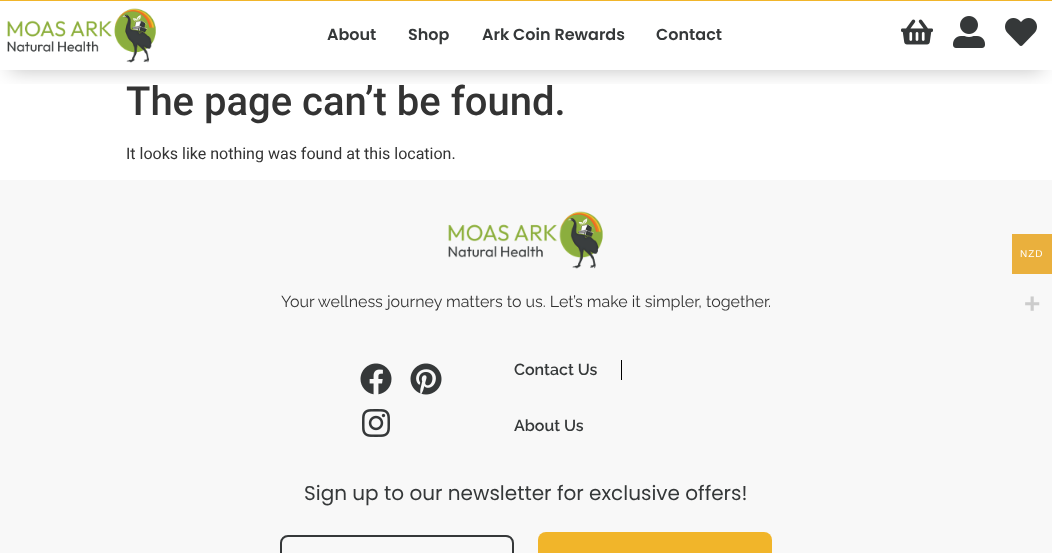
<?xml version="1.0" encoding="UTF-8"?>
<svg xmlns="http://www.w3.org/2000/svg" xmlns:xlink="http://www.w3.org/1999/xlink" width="1052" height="553">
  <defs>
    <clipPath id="clip1"><rect x="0" y="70" width="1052" height="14" /></clipPath>
  </defs>
  <rect width="100%" height="100%" fill="#ffffff" />
  <rect width="1052" height="1" fill="#f1b52a" />
  <g clip-path="url(#clip1)">
    <rect x="10" y="21" width="1032" height="49" fill="#000000" fill-opacity="0.25" filter="blur(10px)" />
  </g>
  <image x="7" y="8" width="149" height="55" xlink:href="image1.png" />
  <image x="901" y="19" width="32" height="26" xlink:href="image2.png" />
  <image x="953" y="16" width="32" height="32" xlink:href="image3.png" />
  <image x="1005" y="18" width="32" height="28" xlink:href="image4.png" />
  <rect y="180" width="1052" height="373" fill="#f8f8f8" />
  <rect x="1012" y="234" width="40" height="40" fill="#eab03d" />
  <image x="448" y="211" width="155" height="58" xlink:href="image5.png" />
  <image x="360" y="363" width="32" height="32" xlink:href="image6.png" />
  <image x="410" y="363" width="32" height="32" xlink:href="image7.png" />
  <image x="362" y="409" width="28" height="28" xlink:href="image8.png" />
  <rect x="621" y="360" width="1" height="20" fill="#000000" />
  <rect x="281" y="536" width="232" height="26" rx="7" fill="none" stroke="#353839" stroke-width="2" />
  <rect x="538" y="532" width="234" height="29" rx="8" fill="#f1b52a" />
  <text x="327" y="40" style="font-family: Poppins; font-size: 16px; font-weight: 600; fill: #353839">About</text>
  <text x="408" y="40" style="font-family: Poppins; font-size: 16px; font-weight: 600; fill: #353839">Shop</text>
  <text x="482" y="40" style="font-family: Poppins; font-size: 16px; font-weight: 600; fill: #353839">Ark Coin Rewards</text>
  <text x="656" y="40" style="font-family: Poppins; font-size: 16px; font-weight: 600; fill: #353839">Contact</text>
  <text x="126" y="115" style="font-family: Roboto; font-size: 40px; font-weight: 500; fill: #333333">The page can’t be found.</text>
  <text x="126" y="159" style="font-family: Roboto; font-size: 16px; fill: #333333">It looks like nothing was found at this location.</text>
  <text x="1020" y="257" style="font-family: Liberation Sans; font-size: 10px; letter-spacing: 1px; fill: #ffffff">NZD</text>
  <text x="1024" y="313" style="font-family: Liberation Sans; font-size: 28px; font-weight: bold; fill: #cccccc">+</text>
  <text x="281" y="307" style="font-family: Raleway; font-size: 16px; fill: #333333">Your wellness journey matters to us. Let’s make it simpler, together.</text>
  <text x="514" y="375" style="font-family: Raleway; font-size: 16px; font-weight: 600; fill: #353839">Contact Us</text>
  <text x="514" y="431" style="font-family: Raleway; font-size: 16px; font-weight: 600; fill: #353839">About Us</text>
  <text x="304" y="500" style="font-family: Poppins; font-size: 20px; fill: #353839">Sign up to our newsletter for exclusive offers!</text>
</svg>
